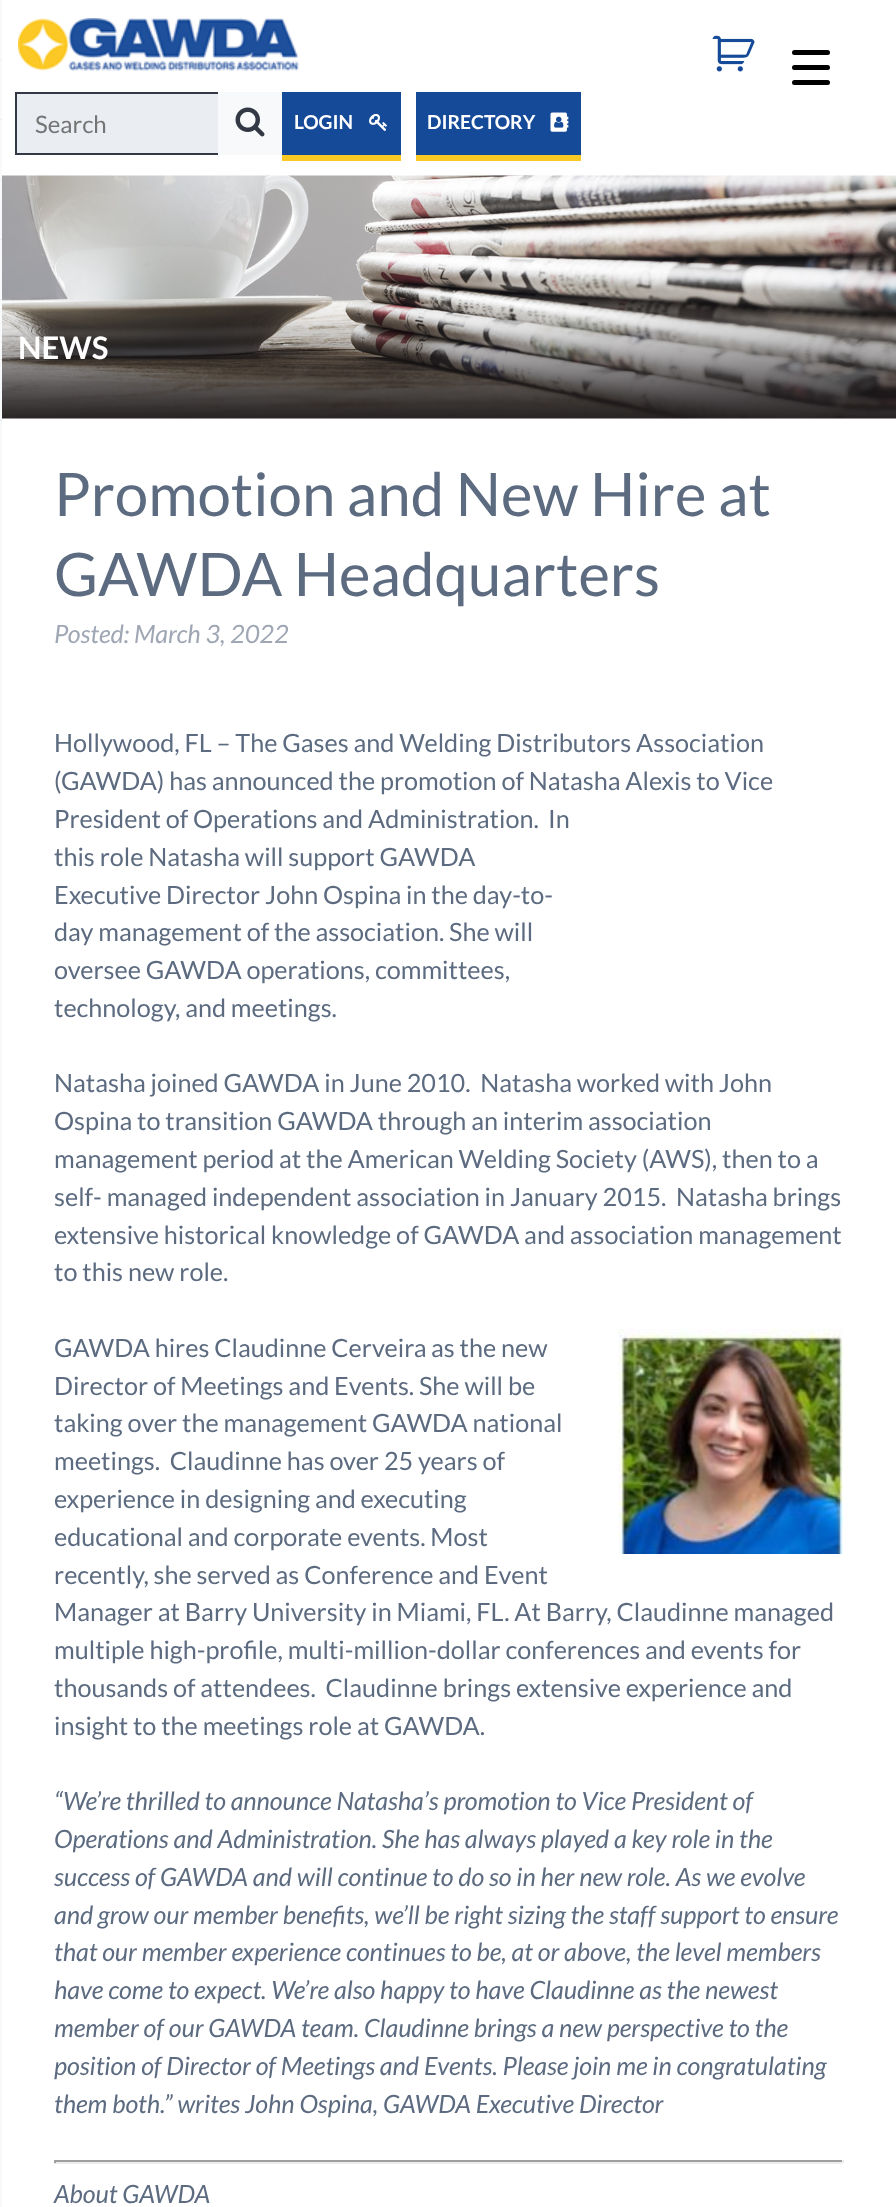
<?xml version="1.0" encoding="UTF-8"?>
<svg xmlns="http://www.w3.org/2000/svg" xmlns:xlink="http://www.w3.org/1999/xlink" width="896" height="2207">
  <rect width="100%" height="100%" fill="#ffffff" />
  <rect width="2" height="2207" fill="#f8f9fa" />
  <rect y="59" width="2" height="1" fill="#eaedf2" />
  <rect y="119" width="2" height="1" fill="#eaedf2" />
  <rect y="179" width="2" height="1" fill="#eaedf2" />
  <rect y="239" width="2" height="1" fill="#eaedf2" />
  <rect y="299" width="2" height="1" fill="#eaedf2" />
  <rect y="359" width="2" height="1" fill="#eaedf2" />
  <rect y="419" width="2" height="2" fill="#eaedf2" />
  <rect x="792" y="65" width="38" height="5" rx="2.5" fill="#000000" />
  <rect x="792" y="50" width="38" height="5" rx="2.5" fill="#000000" />
  <rect x="792" y="80" width="38" height="5" rx="2.5" fill="#000000" />
  <image x="18" y="18" width="281" height="53" xlink:href="image1.png" />
  <image x="712" y="35" width="43" height="37" xlink:href="image2.png" />
  <rect x="17" y="94" width="201" height="59" fill="#eaedf2" />
  <rect x="15" y="92" width="203" height="2" fill="#323944" />
  <rect x="15" y="153" width="203" height="2" fill="#323944" />
  <rect x="15" y="92" width="2" height="63" fill="#323944" />
  <rect x="218" y="92" width="64" height="63" fill="#f8f9fa" />
  <image x="235" y="107" width="30" height="30" xlink:href="image3.png" />
  <rect x="282" y="92" width="119" height="63" fill="#154a99" />
  <rect x="282" y="155" width="119" height="6" fill="#fbc926" />
  <image x="369" y="113" width="18" height="18" xlink:href="image4.png" />
  <rect x="416" y="92" width="165" height="63" fill="#154a99" />
  <rect x="416" y="155" width="165" height="6" fill="#fbc926" />
  <image x="550" y="112" width="19" height="20" xlink:href="image5.png" />
  <image x="2" y="175" width="894" height="244" xlink:href="image6.png" />
  <image x="618" y="1329" width="225" height="225" xlink:href="image7.png" />
  <rect x="54" y="2160" width="789" height="2" fill="#9f9f9f" />
  <rect x="842" y="2160" width="2" height="3" fill="#eeeeee" />
  <rect x="54" y="2162" width="789" height="2" fill="#eeeeee" />
  <rect x="54" y="2160" width="2" height="3" fill="#9f9f9f" />
  <text x="35" y="133" style="font-family: Lato; font-size: 24px; fill: #757575">Search</text>
  <text x="294" y="129" style="font-family: Lato; font-size: 19.25px; font-weight: bold; fill: #ffffff">LOGIN</text>
  <text x="427" y="129" style="font-family: Lato; font-size: 19.25px; font-weight: bold; fill: #ffffff">DIRECTORY</text>
  <text x="18" y="359" style="font-family: Lato; font-size: 31px; font-weight: bold; fill: #ffffff">NEWS</text>
  <text x="54" y="516" style="font-family: Lato; font-size: 60px; fill: #5c6b80">Promotion and New Hire at</text>
  <text x="54" y="596" style="font-family: Lato; font-size: 60px; fill: #5c6b80">GAWDA Headquarters</text>
  <text x="54" y="643" style="font-family: Lato; font-size: 25.2px; font-style: italic; fill: #9fa6b4">Posted: March 3, 2022</text>
  <text x="54" y="752" style="font-family: Lato; font-size: 25.2px; fill: #5c6b80">Hollywood, FL – The Gases and Welding Distributors Association</text>
  <text x="54" y="790" style="font-family: Lato; font-size: 25.2px; fill: #5c6b80">(GAWDA) has announced the promotion of Natasha Alexis to Vice</text>
  <text x="54" y="828" style="font-family: Lato; font-size: 25.2px; fill: #5c6b80">President of Operations and Administration.</text>
  <text x="548" y="828" style="font-family: Lato; font-size: 25.2px; fill: #5c6b80">In</text>
  <text x="54" y="866" style="font-family: Lato; font-size: 25.2px; fill: #5c6b80">this role Natasha will support GAWDA</text>
  <text x="54" y="904" style="font-family: Lato; font-size: 25.2px; fill: #5c6b80">Executive Director John Ospina in the day-to-</text>
  <text x="54" y="941" style="font-family: Lato; font-size: 25.2px; fill: #5c6b80">day management of the association. She will</text>
  <text x="54" y="979" style="font-family: Lato; font-size: 25.2px; fill: #5c6b80">oversee GAWDA operations, committees,</text>
  <text x="54" y="1017" style="font-family: Lato; font-size: 25.2px; fill: #5c6b80">technology, and meetings.</text>
  <text x="54" y="1092" style="font-family: Lato; font-size: 25.2px; fill: #5c6b80" xml:space="preserve">Natasha joined GAWDA in June 2010.  Natasha worked with John</text>
  <text x="54" y="1130" style="font-family: Lato; font-size: 25.2px; fill: #5c6b80">Ospina to transition GAWDA through an interim association</text>
  <text x="54" y="1168" style="font-family: Lato; font-size: 25.2px; fill: #5c6b80">management period at the American Welding Society (AWS), then to a</text>
  <text x="54" y="1206" style="font-family: Lato; font-size: 25.2px; fill: #5c6b80" xml:space="preserve">self- managed independent association in January 2015.  Natasha brings</text>
  <text x="54" y="1244" style="font-family: Lato; font-size: 25.2px; fill: #5c6b80">extensive historical knowledge of GAWDA and association management</text>
  <text x="54" y="1281" style="font-family: Lato; font-size: 25.2px; fill: #5c6b80">to this new role.</text>
  <text x="54" y="1357" style="font-family: Lato; font-size: 25.2px; fill: #5c6b80">GAWDA hires Claudinne Cerveira</text>
  <text x="431" y="1357" style="font-family: Lato; font-size: 25.2px; fill: #5c6b80">as the new</text>
  <text x="54" y="1395" style="font-family: Lato; font-size: 25.2px; fill: #5c6b80">Director of Meetings and Events. She will be</text>
  <text x="54" y="1432" style="font-family: Lato; font-size: 25.2px; fill: #5c6b80">taking over the management GAWDA national</text>
  <text x="54" y="1470" style="font-family: Lato; font-size: 25.2px; fill: #5c6b80" xml:space="preserve">meetings.  Claudinne has over 25 years of</text>
  <text x="54" y="1508" style="font-family: Lato; font-size: 25.2px; fill: #5c6b80">experience in designing and executing</text>
  <text x="54" y="1546" style="font-family: Lato; font-size: 25.2px; fill: #5c6b80">educational and corporate events. Most</text>
  <text x="54" y="1584" style="font-family: Lato; font-size: 25.2px; fill: #5c6b80">recently, she served as Conference and Event</text>
  <text x="54" y="1621" style="font-family: Lato; font-size: 25.2px; fill: #5c6b80">Manager at Barry University in Miami, FL. At Barry, Claudinne managed</text>
  <text x="54" y="1659" style="font-family: Lato; font-size: 25.2px; fill: #5c6b80">multiple high-profile, multi-million-dollar conferences and events for</text>
  <text x="54" y="1697" style="font-family: Lato; font-size: 25.2px; fill: #5c6b80" xml:space="preserve">thousands of attendees.  Claudinne brings extensive experience and</text>
  <text x="54" y="1735" style="font-family: Lato; font-size: 25.2px; fill: #5c6b80">insight to the meetings role at GAWDA.</text>
  <text x="54" y="1810" style="font-family: Lato; font-size: 25.2px; font-style: italic; fill: #5c6b80">“We’re thrilled to announce Natasha’s promotion to Vice President of</text>
  <text x="54" y="1848" style="font-family: Lato; font-size: 25.2px; font-style: italic; fill: #5c6b80">Operations and Administration. She has always played a key role in the</text>
  <text x="54" y="1886" style="font-family: Lato; font-size: 25.2px; font-style: italic; fill: #5c6b80">success of GAWDA and will continue to do so in her new role. As we evolve</text>
  <text x="54" y="1924" style="font-family: Lato; font-size: 25.2px; font-style: italic; fill: #5c6b80">and grow our member benefits, we’ll be right sizing the staff support to ensure</text>
  <text x="54" y="1961" style="font-family: Lato; font-size: 25.2px; font-style: italic; fill: #5c6b80">that our member experience continues to be, at or above, the level members</text>
  <text x="54" y="1999" style="font-family: Lato; font-size: 25.2px; font-style: italic; fill: #5c6b80">have come to expect. We’re also happy to have Claudinne as the newest</text>
  <text x="54" y="2037" style="font-family: Lato; font-size: 25.2px; font-style: italic; fill: #5c6b80">member of our GAWDA team. Claudinne brings a new perspective to the</text>
  <text x="54" y="2075" style="font-family: Lato; font-size: 25.2px; font-style: italic; fill: #5c6b80">position of Director of Meetings and Events. Please join me in congratulating</text>
  <text x="54" y="2113" style="font-family: Lato; font-size: 25.2px; font-style: italic; fill: #5c6b80">them both.” writes John Ospina, GAWDA Executive Director</text>
  <text x="54" y="2203" style="font-family: Lato; font-size: 25.2px; font-style: italic; fill: #5c6b80">About GAWDA</text>
</svg>
